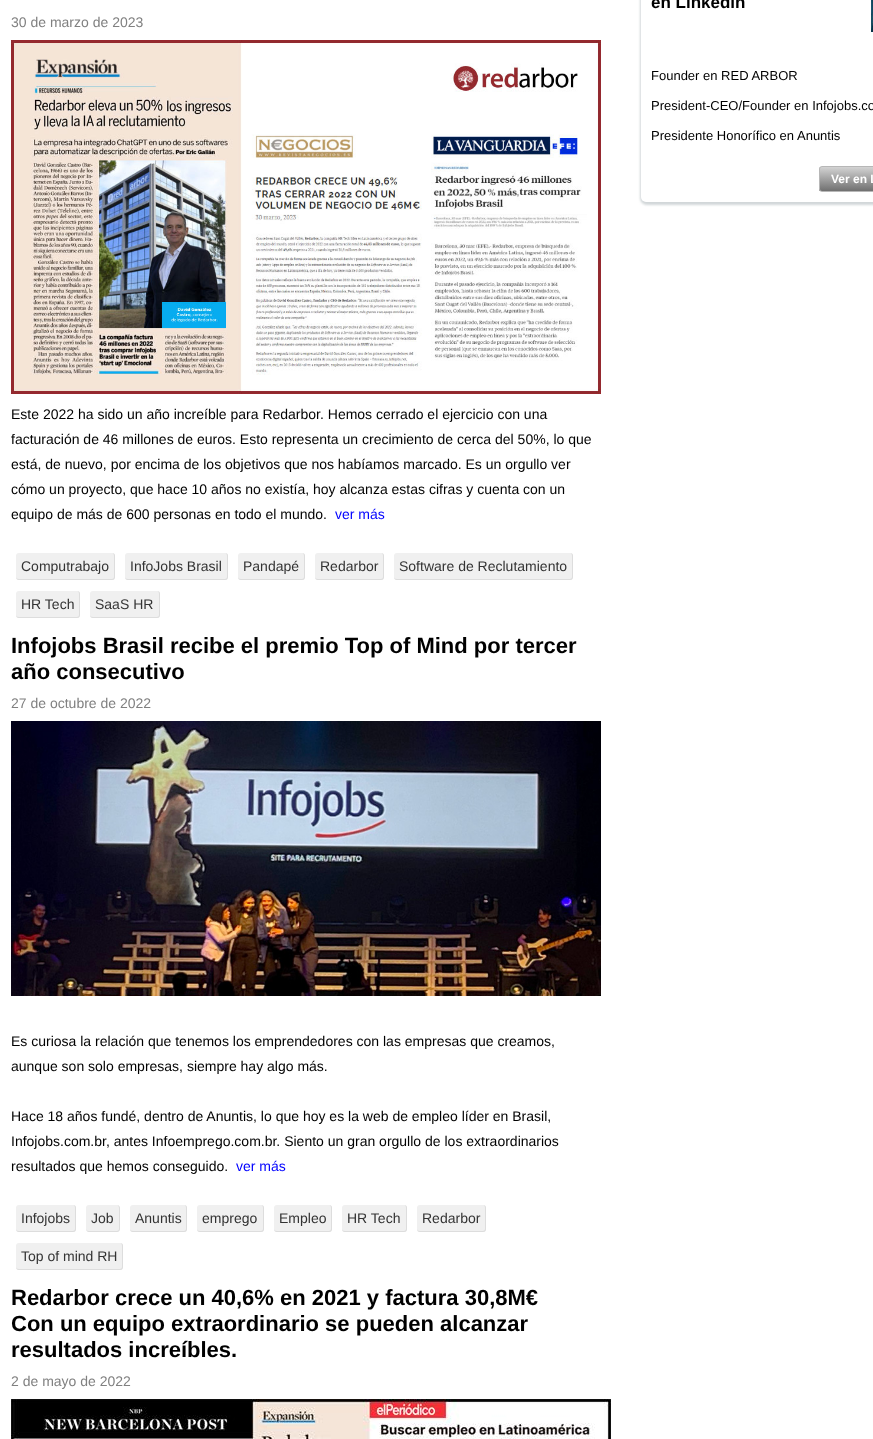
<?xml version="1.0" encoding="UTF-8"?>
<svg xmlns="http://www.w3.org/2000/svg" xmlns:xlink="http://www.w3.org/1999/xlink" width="873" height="1439">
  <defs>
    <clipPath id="clip1"><rect x="819" y="166" width="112" height="26" rx="3" /></clipPath>
    <linearGradient id="g1" gradientUnits="userSpaceOnUse" x1="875" y1="167" x2="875" y2="191"><stop offset="0" stop-color="#d3d3d3" /><stop offset="1" stop-color="#707070" /></linearGradient>
  </defs>
  <rect width="100%" height="100%" fill="#ffffff" />
  <image x="11" y="40" width="590" height="354" xlink:href="image1.png" />
  <rect x="16" y="553" width="99" height="27" rx="3" fill="#f0f0f0" />
  <path d="M 19 553 h 93 c 2 0 3 1 3 3 v 21 c 0 2 -1 3 -3 3 h -93 c -2 0 -3 -1 -3 -3 v -21 c 0 -2 1 -3 3 -3 z m 0 0 h 93 c 1 0 2 1 2 3 v 21 c 0 1 -1 2 -2 2 h -93 c -2 0 -3 -1 -3 -2 v -21 c 0 -2 1 -3 3 -3 z" fill="#dddddd" fill-rule="evenodd" />
  <rect x="125" y="553" width="103" height="27" rx="3" fill="#f0f0f0" />
  <path d="M 128 553 h 97 c 2 0 3 1 3 3 v 21 c 0 2 -1 3 -3 3 h -97 c -2 0 -3 -1 -3 -3 v -21 c 0 -2 1 -3 3 -3 z m 0 0 h 97 c 1 0 2 1 2 3 v 21 c 0 1 -1 2 -2 2 h -97 c -2 0 -3 -1 -3 -2 v -21 c 0 -2 1 -3 3 -3 z" fill="#dddddd" fill-rule="evenodd" />
  <rect x="238" y="553" width="67" height="27" rx="3" fill="#f0f0f0" />
  <path d="M 241 553 h 61 c 2 0 3 1 3 3 v 21 c 0 2 -1 3 -3 3 h -61 c -2 0 -3 -1 -3 -3 v -21 c 0 -2 1 -3 3 -3 z m 0 0 h 61 c 1 0 2 1 2 3 v 21 c 0 1 -1 2 -2 2 h -61 c -2 0 -3 -1 -3 -2 v -21 c 0 -2 1 -3 3 -3 z" fill="#dddddd" fill-rule="evenodd" />
  <rect x="315" y="553" width="69" height="27" rx="3" fill="#f0f0f0" />
  <path d="M 318 553 h 63 c 2 0 3 1 3 3 v 21 c 0 2 -1 3 -3 3 h -63 c -2 0 -3 -1 -3 -3 v -21 c 0 -2 1 -3 3 -3 z m 0 0 h 63 c 1 0 2 1 2 3 v 21 c 0 1 -1 2 -2 2 h -63 c -2 0 -3 -1 -3 -2 v -21 c 0 -2 1 -3 3 -3 z" fill="#dddddd" fill-rule="evenodd" />
  <rect x="394" y="553" width="179" height="27" rx="3" fill="#f0f0f0" />
  <path d="M 397 553 h 173 c 2 0 3 1 3 3 v 21 c 0 2 -1 3 -3 3 h -173 c -2 0 -3 -1 -3 -3 v -21 c 0 -2 1 -3 3 -3 z m 0 0 h 173 c 1 0 2 1 2 3 v 21 c 0 1 -1 2 -2 2 h -173 c -2 0 -3 -1 -3 -2 v -21 c 0 -2 1 -3 3 -3 z" fill="#dddddd" fill-rule="evenodd" />
  <rect x="16" y="591" width="64" height="27" rx="3" fill="#f0f0f0" />
  <path d="M 19 591 h 58 c 2 0 3 1 3 3 v 21 c 0 2 -1 3 -3 3 h -58 c -2 0 -3 -1 -3 -3 v -21 c 0 -2 1 -3 3 -3 z m 0 0 h 58 c 1 0 2 1 2 3 v 21 c 0 1 -1 2 -2 2 h -58 c -2 0 -3 -1 -3 -2 v -21 c 0 -2 1 -3 3 -3 z" fill="#dddddd" fill-rule="evenodd" />
  <rect x="90" y="591" width="70" height="27" rx="3" fill="#f0f0f0" />
  <path d="M 93 591 h 64 c 2 0 3 1 3 3 v 21 c 0 2 -1 3 -3 3 h -64 c -2 0 -3 -1 -3 -3 v -21 c 0 -2 1 -3 3 -3 z m 0 0 h 64 c 1 0 2 1 2 3 v 21 c 0 1 -1 2 -2 2 h -64 c -2 0 -3 -1 -3 -2 v -21 c 0 -2 1 -3 3 -3 z" fill="#dddddd" fill-rule="evenodd" />
  <image x="11" y="721" width="590" height="275" xlink:href="image2.png" />
  <rect x="16" y="1205" width="60" height="27" rx="3" fill="#f0f0f0" />
  <path d="M 19 1205 h 54 c 2 0 3 1 3 3 v 21 c 0 2 -1 3 -3 3 h -54 c -2 0 -3 -1 -3 -3 v -21 c 0 -2 1 -3 3 -3 z m 0 0 h 54 c 1 0 2 1 2 3 v 21 c 0 1 -1 2 -2 2 h -54 c -2 0 -3 -1 -3 -2 v -21 c 0 -2 1 -3 3 -3 z" fill="#dddddd" fill-rule="evenodd" />
  <rect x="86" y="1205" width="34" height="27" rx="3" fill="#f0f0f0" />
  <path d="M 89 1205 h 28 c 1.5 0 3 1.5 3 3 v 21 c 0 1.5 -1.5 3 -3 3 h -28 c -1.5 0 -3 -1.5 -3 -3 v -21 c 0 -1.5 1.5 -3 3 -3 z m 0 0 h 28 c 1 0 2 1.5 2 3 v 21 c 0 1 -1 2 -2 2 h -28 c -1.5 0 -3 -1 -3 -2 v -21 c 0 -1.5 1.5 -3 3 -3 z" fill="#dddddd" fill-rule="evenodd" />
  <rect x="130" y="1205" width="57" height="27" rx="3" fill="#f0f0f0" />
  <path d="M 133 1205 h 51 c 2 0 3 1 3 3 v 21 c 0 2 -1 3 -3 3 h -51 c -2 0 -3 -1 -3 -3 v -21 c 0 -2 1 -3 3 -3 z m 0 0 h 51 c 1 0 2 1 2 3 v 21 c 0 1 -1 2 -2 2 h -51 c -2 0 -3 -1 -3 -2 v -21 c 0 -2 1 -3 3 -3 z" fill="#dddddd" fill-rule="evenodd" />
  <rect x="197" y="1205" width="67" height="27" rx="3" fill="#f0f0f0" />
  <path d="M 200 1205 h 61 c 2 0 3 1 3 3 v 21 c 0 2 -1 3 -3 3 h -61 c -2 0 -3 -1 -3 -3 v -21 c 0 -2 1 -3 3 -3 z m 0 0 h 61 c 1 0 2 1 2 3 v 21 c 0 1 -1 2 -2 2 h -61 c -2 0 -3 -1 -3 -2 v -21 c 0 -2 1 -3 3 -3 z" fill="#dddddd" fill-rule="evenodd" />
  <rect x="274" y="1205" width="58" height="27" rx="3" fill="#f0f0f0" />
  <path d="M 277 1205 h 52 c 2 0 3 1 3 3 v 21 c 0 2 -1 3 -3 3 h -52 c -2 0 -3 -1 -3 -3 v -21 c 0 -2 1 -3 3 -3 z m 0 0 h 52 c 1 0 2 1 2 3 v 21 c 0 1 -1 2 -2 2 h -52 c -2 0 -3 -1 -3 -2 v -21 c 0 -2 1 -3 3 -3 z" fill="#dddddd" fill-rule="evenodd" />
  <rect x="342" y="1205" width="65" height="27" rx="3" fill="#f0f0f0" />
  <path d="M 345 1205 h 59 c 2 0 3 1 3 3 v 21 c 0 2 -1 3 -3 3 h -59 c -2 0 -3 -1 -3 -3 v -21 c 0 -2 1 -3 3 -3 z m 0 0 h 59 c 1 0 2 1 2 3 v 21 c 0 1 -1 2 -2 2 h -59 c -2 0 -3 -1 -3 -2 v -21 c 0 -2 1 -3 3 -3 z" fill="#dddddd" fill-rule="evenodd" />
  <rect x="417" y="1205" width="69" height="27" rx="3" fill="#f0f0f0" />
  <path d="M 420 1205 h 63 c 2 0 3 1 3 3 v 21 c 0 2 -1 3 -3 3 h -63 c -2 0 -3 -1 -3 -3 v -21 c 0 -2 1 -3 3 -3 z m 0 0 h 63 c 1 0 2 1 2 3 v 21 c 0 1 -1 2 -2 2 h -63 c -2 0 -3 -1 -3 -2 v -21 c 0 -2 1 -3 3 -3 z" fill="#dddddd" fill-rule="evenodd" />
  <rect x="16" y="1243" width="107" height="27" rx="3" fill="#f0f0f0" />
  <path d="M 19 1243 h 101 c 2 0 3 1 3 3 v 21 c 0 2 -1 3 -3 3 h -101 c -2 0 -3 -1 -3 -3 v -21 c 0 -2 1 -3 3 -3 z m 0 0 h 101 c 1 0 2 1 2 3 v 21 c 0 1 -1 2 -2 2 h -101 c -2 0 -3 -1 -3 -2 v -21 c 0 -2 1 -3 3 -3 z" fill="#dddddd" fill-rule="evenodd" />
  <image x="11" y="1399" width="600" height="40" xlink:href="image3.png" />
  <rect x="640" y="-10" width="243" height="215" rx="7" fill="#d2d7d9" filter="blur(1px)" />
  <rect x="641" y="-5" width="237" height="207" rx="5" fill="#ffffff" />
  <image x="871" y="0" width="2" height="32" xlink:href="image4.png" />
  <g clip-path="url(#clip1)">
    <rect x="819" y="167" width="54" height="24" fill="url(#g1)" />
  </g>
  <rect x="819.5" y="166.5" width="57" height="25" rx="2.5" fill="none" stroke="#b7b7b7" />
  <text x="11" y="27" style="font-family: Liberation Sans; font-size: 14px; fill: #808080">30 de marzo de 2023</text>
  <text x="11" y="419" style="font-family: Liberation Sans; font-size: 14px; fill: #000000">Este 2022 ha sido un año increíble para Redarbor. Hemos cerrado el ejercicio con una</text>
  <text x="11" y="444" style="font-family: Liberation Sans; font-size: 14px; fill: #000000">facturación de 46 millones de euros. Esto representa un crecimiento de cerca del 50%, lo que</text>
  <text x="11" y="469" style="font-family: Liberation Sans; font-size: 14px; fill: #000000">está, de nuevo, por encima de los objetivos que nos habíamos marcado. Es un orgullo ver</text>
  <text x="11" y="494" style="font-family: Liberation Sans; font-size: 14px; fill: #000000">cómo un proyecto, que hace 10 años no existía, hoy alcanza estas cifras y cuenta con un</text>
  <text x="11" y="519" style="font-family: Liberation Sans; font-size: 14px; fill: #000000">equipo de más de 600 personas en todo el mundo.</text>
  <text x="335" y="519" style="font-family: Liberation Sans; font-size: 14px; fill: #0000ff">ver más</text>
  <text x="21" y="571" style="font-family: Liberation Sans; font-size: 14px; fill: #333333">Computrabajo</text>
  <text x="130" y="571" style="font-family: Liberation Sans; font-size: 14px; fill: #333333">InfoJobs Brasil</text>
  <text x="243" y="571" style="font-family: Liberation Sans; font-size: 14px; fill: #333333">Pandapé</text>
  <text x="320" y="571" style="font-family: Liberation Sans; font-size: 14px; fill: #333333">Redarbor</text>
  <text x="399" y="571" style="font-family: Liberation Sans; font-size: 14px; fill: #333333">Software de Reclutamiento</text>
  <text x="21" y="609" style="font-family: Liberation Sans; font-size: 14px; fill: #333333">HR Tech</text>
  <text x="95" y="609" style="font-family: Liberation Sans; font-size: 14px; fill: #333333">SaaS HR</text>
  <text x="11" y="653" style="font-family: Liberation Sans; font-size: 22px; font-weight: bold; fill: #000000">Infojobs Brasil recibe el premio Top of Mind por tercer</text>
  <text x="11" y="679" style="font-family: Liberation Sans; font-size: 22px; font-weight: bold; fill: #000000">año consecutivo</text>
  <text x="11" y="708" style="font-family: Liberation Sans; font-size: 14px; fill: #808080">27 de octubre de 2022</text>
  <text x="11" y="1046" style="font-family: Liberation Sans; font-size: 14px; fill: #000000">Es curiosa la relación que tenemos los emprendedores con las empresas que creamos,</text>
  <text x="11" y="1071" style="font-family: Liberation Sans; font-size: 14px; fill: #000000">aunque son solo empresas, siempre hay algo más.</text>
  <text x="11" y="1121" style="font-family: Liberation Sans; font-size: 14px; fill: #000000">Hace 18 años fundé, dentro de Anuntis, lo que hoy es la web de empleo líder en Brasil,</text>
  <text x="11" y="1146" style="font-family: Liberation Sans; font-size: 14px; fill: #000000">Infojobs.com.br, antes Infoemprego.com.br. Siento un gran orgullo de los extraordinarios</text>
  <text x="11" y="1171" style="font-family: Liberation Sans; font-size: 14px; fill: #000000">resultados que hemos conseguido.</text>
  <text x="236" y="1171" style="font-family: Liberation Sans; font-size: 14px; fill: #0000ff">ver más</text>
  <text x="21" y="1223" style="font-family: Liberation Sans; font-size: 14px; fill: #333333">Infojobs</text>
  <text x="91" y="1223" style="font-family: Liberation Sans; font-size: 14px; fill: #333333">Job</text>
  <text x="135" y="1223" style="font-family: Liberation Sans; font-size: 14px; fill: #333333">Anuntis</text>
  <text x="202" y="1223" style="font-family: Liberation Sans; font-size: 14px; fill: #333333">emprego</text>
  <text x="279" y="1223" style="font-family: Liberation Sans; font-size: 14px; fill: #333333">Empleo</text>
  <text x="347" y="1223" style="font-family: Liberation Sans; font-size: 14px; fill: #333333">HR Tech</text>
  <text x="422" y="1223" style="font-family: Liberation Sans; font-size: 14px; fill: #333333">Redarbor</text>
  <text x="21" y="1261" style="font-family: Liberation Sans; font-size: 14px; fill: #333333">Top of mind RH</text>
  <text x="11" y="1305" style="font-family: Liberation Sans; font-size: 22px; font-weight: bold; fill: #000000">Redarbor crece un 40,6% en 2021 y factura 30,8M€</text>
  <text x="11" y="1331" style="font-family: Liberation Sans; font-size: 22px; font-weight: bold; fill: #000000">Con un equipo extraordinario se pueden alcanzar</text>
  <text x="11" y="1357" style="font-family: Liberation Sans; font-size: 22px; font-weight: bold; fill: #000000">resultados increíbles.</text>
  <text x="11" y="1386" style="font-family: Liberation Sans; font-size: 14px; fill: #808080">2 de mayo de 2022</text>
  <text x="651" y="8" style="font-family: Liberation Sans; font-size: 17px; font-weight: bold; fill: #000000">en Linkedin</text>
  <text x="651" y="80" style="font-family: Liberation Sans; font-size: 13px; fill: #000000">Founder en RED ARBOR</text>
  <text x="651" y="110" style="font-family: Liberation Sans; font-size: 13px; fill: #000000">President-CEO/Founder en Infojobs.co</text>
  <text x="651" y="140" style="font-family: Liberation Sans; font-size: 13px; fill: #000000">Presidente Honorífico en Anuntis</text>
  <text x="831" y="183" style="font-family: Liberation Sans; font-size: 12px; font-weight: bold; fill: #ffffff">Ver en L</text>
</svg>
